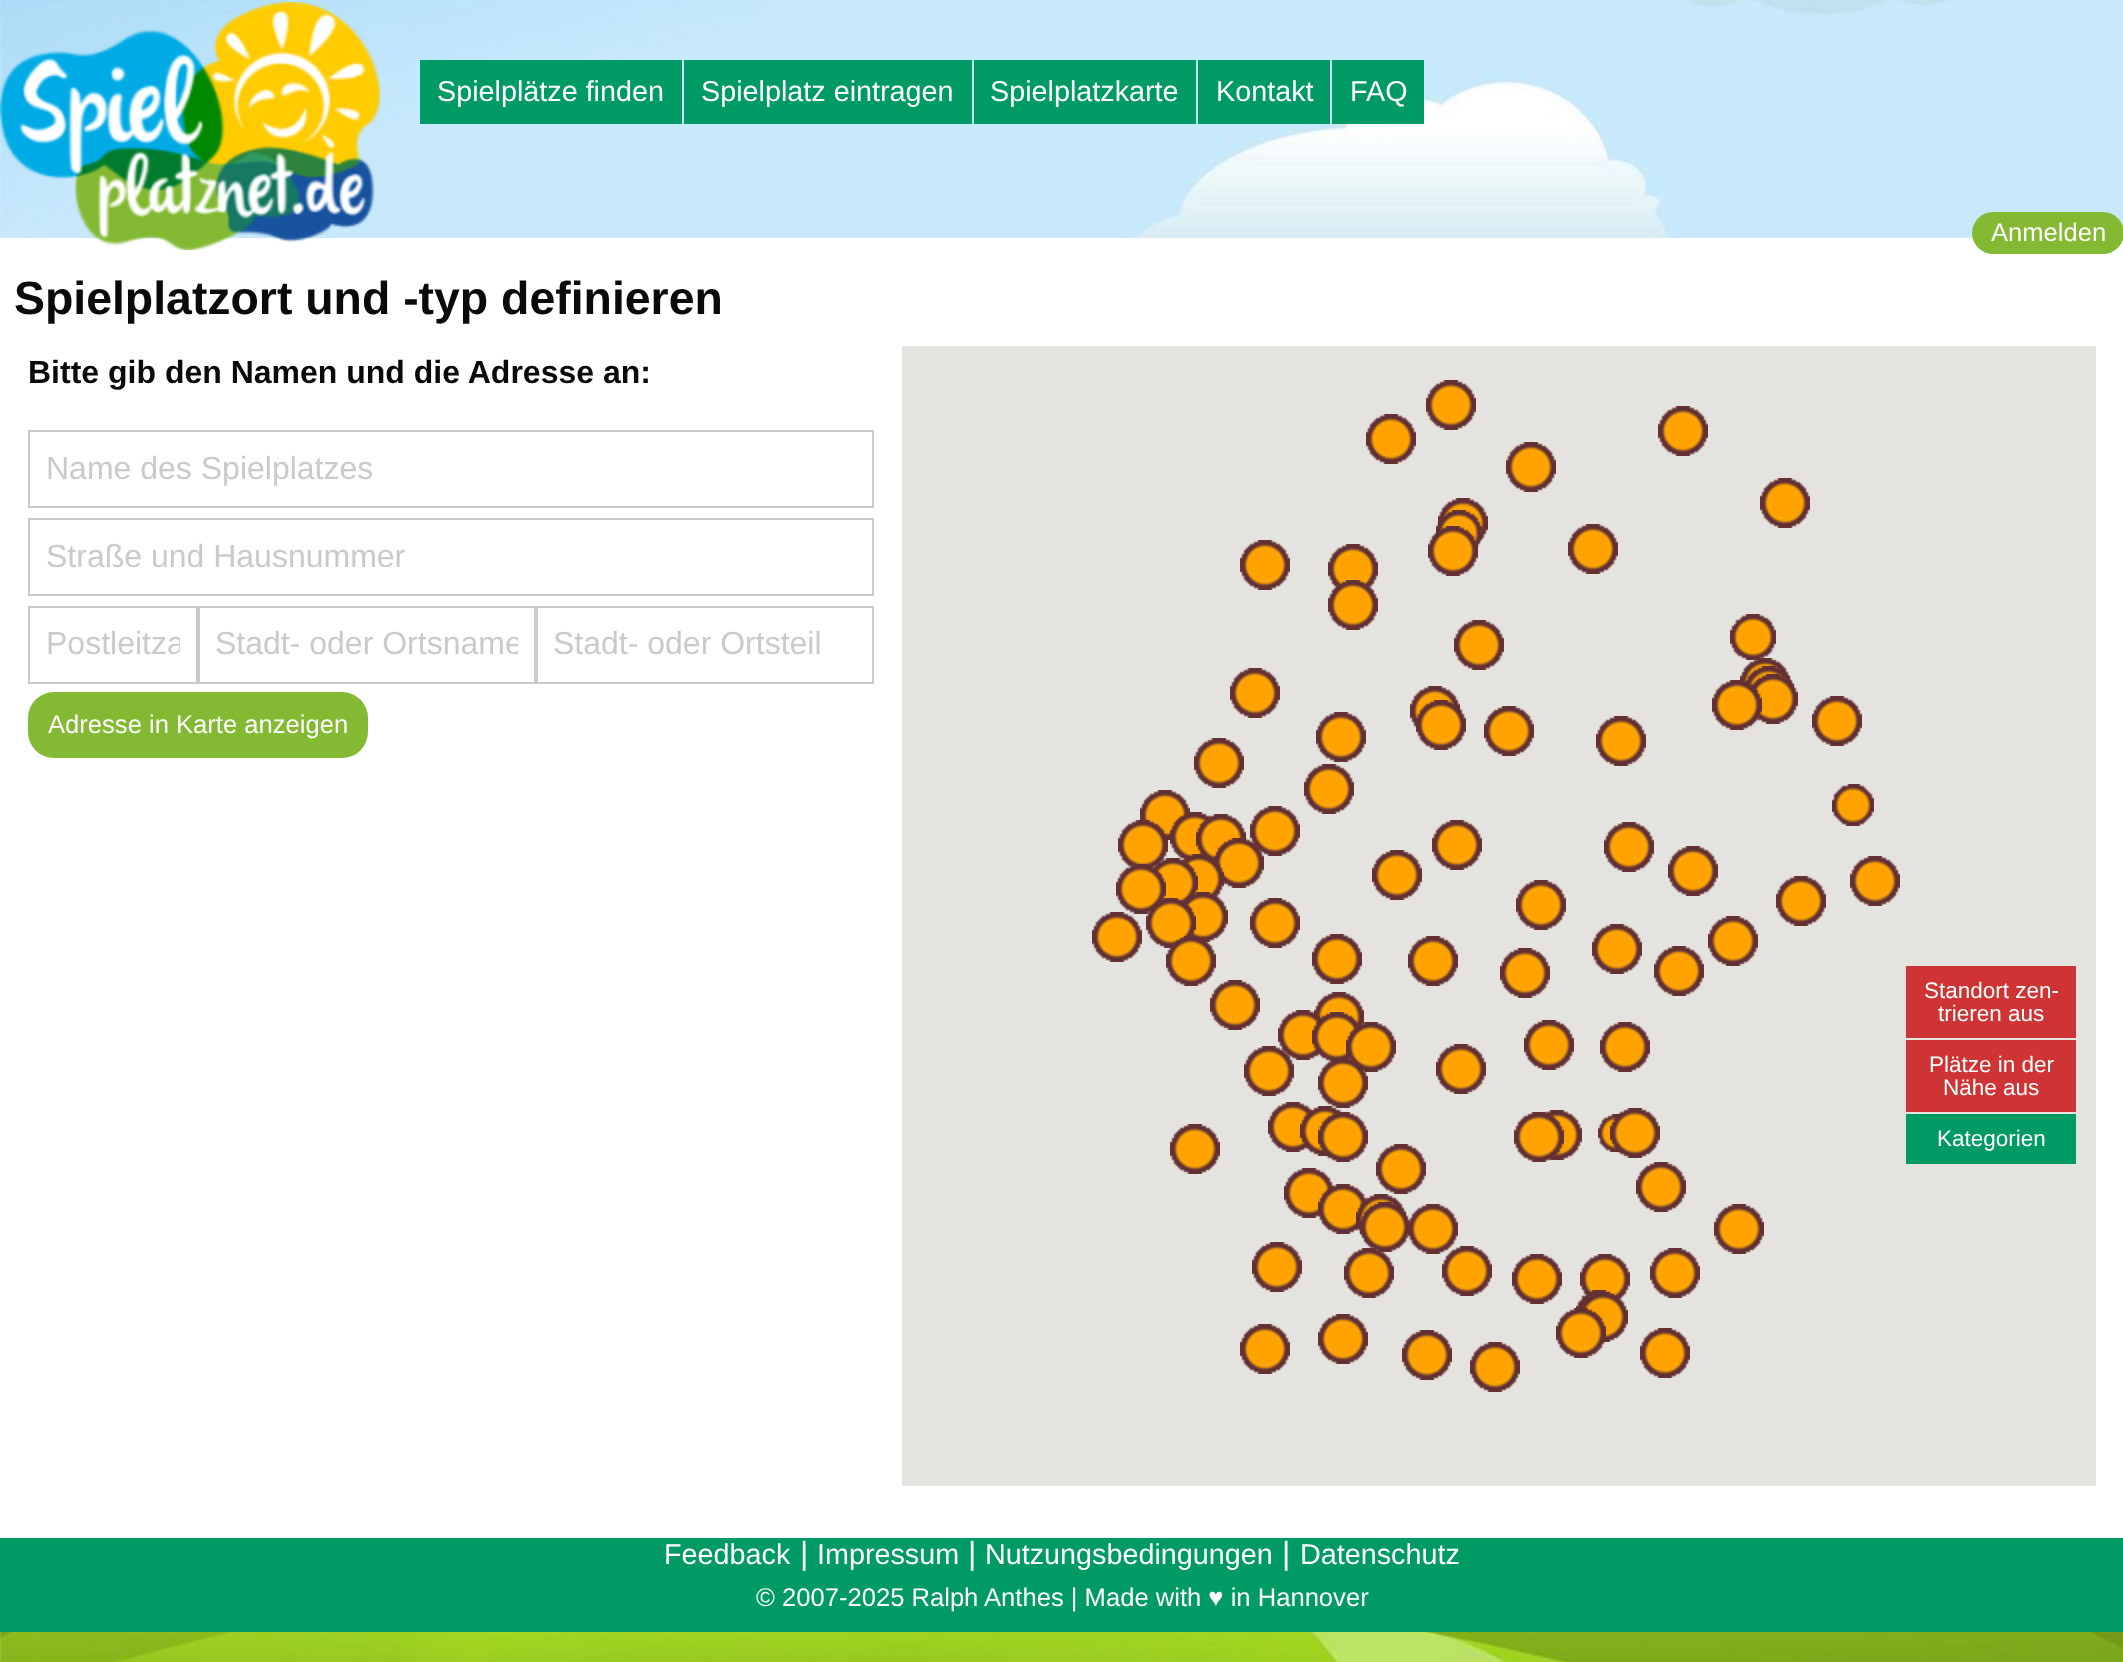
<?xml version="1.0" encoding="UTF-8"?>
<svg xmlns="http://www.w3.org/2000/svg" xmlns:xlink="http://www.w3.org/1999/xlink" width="2123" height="1662">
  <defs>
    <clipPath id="clip1"><rect x="46" y="626" width="134" height="36" /></clipPath>
    <clipPath id="clip2"><rect x="216" y="626" width="302" height="36" /></clipPath>
  </defs>
  <rect width="100%" height="100%" fill="#ffffff" />
  <image x="0" y="0" width="2123" height="1662" xlink:href="image1.png" />
  <rect y="238" width="2123" height="1300" fill="#ffffff" />
  <image x="0" y="2" width="380" height="248" xlink:href="image2.png" />
  <rect x="420" y="60" width="262" height="64" fill="#009a64" />
  <rect x="684" y="60" width="288" height="64" fill="#009a64" />
  <rect x="974" y="60" width="222" height="64" fill="#009a64" />
  <rect x="1198" y="60" width="132" height="64" fill="#009a64" />
  <rect x="1332" y="60" width="92" height="64" fill="#009a64" />
  <rect x="1972" y="212" width="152" height="42" rx="21" fill="#84b933" />
  <rect x="29" y="431" width="844" height="76" fill="none" stroke="#cacaca" stroke-width="2" />
  <rect x="29" y="519" width="844" height="76" fill="none" stroke="#cacaca" stroke-width="2" />
  <rect x="29" y="607" width="168" height="76" fill="none" stroke="#cacaca" stroke-width="2" />
  <rect x="199" y="607" width="336" height="76" fill="none" stroke="#cacaca" stroke-width="2" />
  <rect x="537" y="607" width="336" height="76" fill="none" stroke="#cacaca" stroke-width="2" />
  <rect x="28" y="692" width="340" height="66" rx="26" fill="#84b933" />
  <rect x="902" y="346" width="1194" height="1140" fill="#e5e3df" />
  <image x="1366" y="414" width="50" height="50" xlink:href="image3.png" />
  <image x="1426" y="380" width="50" height="50" xlink:href="image3.png" />
  <image x="1506" y="442" width="50" height="50" xlink:href="image3.png" />
  <image x="1658" y="406" width="50" height="50" xlink:href="image3.png" />
  <image x="1438" y="498" width="50" height="47" xlink:href="image4.png" />
  <image x="1760" y="478" width="50" height="50" xlink:href="image3.png" />
  <image x="1436" y="510" width="46" height="39" xlink:href="image5.png" />
  <image x="1568" y="524" width="50" height="50" xlink:href="image3.png" />
  <image x="1240" y="540" width="50" height="50" xlink:href="image3.png" />
  <image x="1328" y="544" width="50" height="45" xlink:href="image6.png" />
  <image x="1428" y="526" width="50" height="50" xlink:href="image7.png" />
  <image x="1328" y="580" width="50" height="50" xlink:href="image8.png" />
  <image x="1454" y="620" width="50" height="50" xlink:href="image3.png" />
  <image x="1730" y="614" width="46" height="46" xlink:href="image9.png" />
  <image x="1740" y="658" width="50" height="25" xlink:href="image10.png" />
  <image x="1230" y="668" width="50" height="50" xlink:href="image3.png" />
  <image x="1745" y="666" width="49" height="23" xlink:href="image11.png" />
  <image x="1410" y="686" width="50" height="43" xlink:href="image12.png" />
  <image x="1751" y="674" width="47" height="50" xlink:href="image14.png" />
  <image x="1712" y="680" width="50" height="50" xlink:href="image13.png" />
  <image x="1812" y="696" width="50" height="50" xlink:href="image3.png" />
  <image x="1194" y="738" width="50" height="50" xlink:href="image3.png" />
  <image x="1316" y="712" width="50" height="50" xlink:href="image3.png" />
  <image x="1416" y="700" width="50" height="50" xlink:href="image15.png" />
  <image x="1484" y="706" width="50" height="50" xlink:href="image3.png" />
  <image x="1596" y="716" width="50" height="50" xlink:href="image3.png" />
  <image x="1140" y="790" width="50" height="50" xlink:href="image3.png" />
  <image x="1170" y="812" width="41" height="49" xlink:href="image16.png" />
  <image x="1196" y="814" width="50" height="47" xlink:href="image17.png" />
  <image x="1250" y="806" width="50" height="50" xlink:href="image3.png" />
  <image x="1304" y="764" width="50" height="50" xlink:href="image3.png" />
  <image x="1832" y="784" width="42" height="42" xlink:href="image18.png" />
  <image x="1118" y="820" width="50" height="49" xlink:href="image19.png" />
  <image x="1214" y="838" width="50" height="50" xlink:href="image22.png" />
  <image x="1181" y="854" width="43" height="43" xlink:href="image21.png" />
  <image x="1151" y="858" width="47" height="45" xlink:href="image20.png" />
  <image x="1372" y="850" width="50" height="50" xlink:href="image3.png" />
  <image x="1432" y="820" width="50" height="50" xlink:href="image3.png" />
  <image x="1604" y="822" width="50" height="50" xlink:href="image3.png" />
  <image x="1668" y="846" width="50" height="50" xlink:href="image3.png" />
  <image x="1850" y="856" width="50" height="50" xlink:href="image3.png" />
  <image x="1116" y="864" width="50" height="50" xlink:href="image23.png" />
  <image x="1181" y="892" width="47" height="50" xlink:href="image25.png" />
  <image x="1146" y="898" width="50" height="50" xlink:href="image24.png" />
  <image x="1250" y="898" width="50" height="50" xlink:href="image3.png" />
  <image x="1516" y="880" width="50" height="50" xlink:href="image3.png" />
  <image x="1776" y="876" width="50" height="50" xlink:href="image3.png" />
  <image x="1092" y="912" width="50" height="50" xlink:href="image26.png" />
  <image x="1166" y="936" width="50" height="50" xlink:href="image27.png" />
  <image x="1312" y="934" width="50" height="50" xlink:href="image3.png" />
  <image x="1408" y="936" width="50" height="50" xlink:href="image3.png" />
  <image x="1500" y="948" width="50" height="50" xlink:href="image3.png" />
  <image x="1592" y="924" width="50" height="50" xlink:href="image3.png" />
  <image x="1654" y="946" width="50" height="50" xlink:href="image3.png" />
  <image x="1708" y="916" width="50" height="50" xlink:href="image3.png" />
  <image x="1210" y="980" width="50" height="50" xlink:href="image3.png" />
  <image x="1314" y="992" width="50" height="35" xlink:href="image29.png" />
  <image x="1278" y="1010" width="45" height="50" xlink:href="image28.png" />
  <image x="1244" y="1046" width="50" height="50" xlink:href="image30.png" />
  <image x="1312" y="1012" width="49" height="50" xlink:href="image31.png" />
  <image x="1346" y="1022" width="50" height="50" xlink:href="image32.png" />
  <image x="1436" y="1044" width="50" height="50" xlink:href="image3.png" />
  <image x="1524" y="1020" width="50" height="50" xlink:href="image3.png" />
  <image x="1600" y="1022" width="50" height="50" xlink:href="image3.png" />
  <image x="1318" y="1058" width="50" height="50" xlink:href="image33.png" />
  <image x="1268" y="1102" width="45" height="50" xlink:href="image34.png" />
  <image x="1300" y="1106" width="43" height="50" xlink:href="image35.png" />
  <image x="1545" y="1110" width="37" height="50" xlink:href="image36.png" />
  <image x="1598" y="1114" width="23" height="38" xlink:href="image40.png" />
  <image x="1610" y="1108" width="50" height="50" xlink:href="image37.png" />
  <image x="1170" y="1124" width="50" height="50" xlink:href="image3.png" />
  <image x="1284" y="1168" width="50" height="50" xlink:href="image3.png" />
  <image x="1318" y="1112" width="50" height="50" xlink:href="image38.png" />
  <image x="1376" y="1144" width="50" height="50" xlink:href="image3.png" />
  <image x="1514" y="1112" width="50" height="50" xlink:href="image39.png" />
  <image x="1636" y="1162" width="50" height="50" xlink:href="image3.png" />
  <image x="1318" y="1184" width="49" height="50" xlink:href="image41.png" />
  <image x="1356" y="1194" width="50" height="45" xlink:href="image42.png" />
  <image x="1360" y="1202" width="50" height="50" xlink:href="image43.png" />
  <image x="1408" y="1204" width="50" height="50" xlink:href="image44.png" />
  <image x="1714" y="1204" width="50" height="50" xlink:href="image3.png" />
  <image x="1252" y="1242" width="50" height="50" xlink:href="image3.png" />
  <image x="1344" y="1248" width="50" height="50" xlink:href="image45.png" />
  <image x="1442" y="1246" width="50" height="50" xlink:href="image46.png" />
  <image x="1512" y="1254" width="50" height="50" xlink:href="image3.png" />
  <image x="1580" y="1254" width="50" height="47" xlink:href="image4.png" />
  <image x="1650" y="1248" width="50" height="50" xlink:href="image3.png" />
  <image x="1576" y="1290" width="43" height="18" xlink:href="image47.png" />
  <image x="1579" y="1292" width="49" height="50" xlink:href="image48.png" />
  <image x="1240" y="1324" width="50" height="50" xlink:href="image3.png" />
  <image x="1318" y="1314" width="50" height="50" xlink:href="image3.png" />
  <image x="1402" y="1330" width="50" height="50" xlink:href="image3.png" />
  <image x="1470" y="1342" width="50" height="50" xlink:href="image3.png" />
  <image x="1556" y="1308" width="50" height="50" xlink:href="image49.png" />
  <image x="1640" y="1328" width="50" height="50" xlink:href="image3.png" />
  <rect x="1906" y="966" width="170" height="72" fill="#ce3434" />
  <rect x="1906" y="1040" width="170" height="72" fill="#ce3434" />
  <rect x="1906" y="1114" width="170" height="50" fill="#009a64" />
  <rect y="1538" width="2123" height="94" fill="#009a64" />
  <text x="437" y="101" style="font-family: Liberation Sans; font-size: 28.75px; fill: #ffffff">Spielplätze finden</text>
  <text x="701" y="101" style="font-family: Liberation Sans; font-size: 28.75px; fill: #ffffff">Spielplatz eintragen</text>
  <text x="990" y="101" style="font-family: Liberation Sans; font-size: 28.75px; fill: #ffffff">Spielplatzkarte</text>
  <text x="1216" y="101" style="font-family: Liberation Sans; font-size: 28.75px; fill: #ffffff">Kontakt</text>
  <text x="1350" y="101" style="font-family: Liberation Sans; font-size: 28.75px; fill: #ffffff">FAQ</text>
  <text x="1991" y="241" style="font-family: Liberation Sans; font-size: 25.6px; fill: #ffffff">Anmelden</text>
  <text x="14" y="314" style="font-family: Liberation Sans; font-size: 46.4px; font-weight: bold; fill: #0a0a0a">Spielplatzort und -typ definieren</text>
  <text x="28" y="383" style="font-family: Liberation Sans; font-size: 32px; font-weight: bold; fill: #0a0a0a">Bitte gib den Namen und die Adresse an:</text>
  <text x="46" y="479" style="font-family: Liberation Sans; font-size: 32px; fill: #cacaca">Name des Spielplatzes</text>
  <text x="46" y="567" style="font-family: Liberation Sans; font-size: 32px; fill: #cacaca">Straße und Hausnummer</text>
  <g clip-path="url(#clip1)">
    <text x="46" y="654" style="font-family: Liberation Sans; font-size: 32px; fill: #cacaca">Postleitza</text>
  </g>
  <g clip-path="url(#clip2)">
    <text x="215" y="654" style="font-family: Liberation Sans; font-size: 32px; fill: #cacaca">Stadt- oder Ortsname</text>
  </g>
  <text x="553" y="654" style="font-family: Liberation Sans; font-size: 32px; fill: #cacaca">Stadt- oder Ortsteil</text>
  <text x="48" y="733" style="font-family: Liberation Sans; font-size: 25.6px; fill: #ffffff">Adresse in Karte anzeigen</text>
  <text x="1924" y="998" style="font-family: Liberation Sans; font-size: 22.5px; fill: #ffffff">Standort zen-</text>
  <text x="1938" y="1021" style="font-family: Liberation Sans; font-size: 22.5px; fill: #ffffff">trieren aus</text>
  <text x="1929" y="1072" style="font-family: Liberation Sans; font-size: 22.5px; fill: #ffffff">Plätze in der</text>
  <text x="1943" y="1095" style="font-family: Liberation Sans; font-size: 22.5px; fill: #ffffff">Nähe aus</text>
  <text x="1937" y="1146" style="font-family: Liberation Sans; font-size: 22.5px; fill: #ffffff">Kategorien</text>
  <text x="664" y="1564" style="font-family: Liberation Sans; font-size: 28.75px; fill: #ffffff">Feedback</text>
  <text x="800" y="1564" style="font-family: Liberation Sans; font-size: 32px; fill: #ffffff">|</text>
  <text x="817" y="1564" style="font-family: Liberation Sans; font-size: 28.75px; fill: #ffffff">Impressum</text>
  <text x="968" y="1564" style="font-family: Liberation Sans; font-size: 32px; fill: #ffffff">|</text>
  <text x="985" y="1564" style="font-family: Liberation Sans; font-size: 28.75px; fill: #ffffff">Nutzungsbedingungen</text>
  <text x="1282" y="1564" style="font-family: Liberation Sans; font-size: 32px; fill: #ffffff">|</text>
  <text x="1300" y="1564" style="font-family: Liberation Sans; font-size: 28.75px; fill: #ffffff">Datenschutz</text>
  <text x="756" y="1606" style="font-family: Liberation Sans; font-size: 25.6px; fill: #ffffff">© 2007-2025 Ralph Anthes | Made with ♥ in Hannover</text>
</svg>
